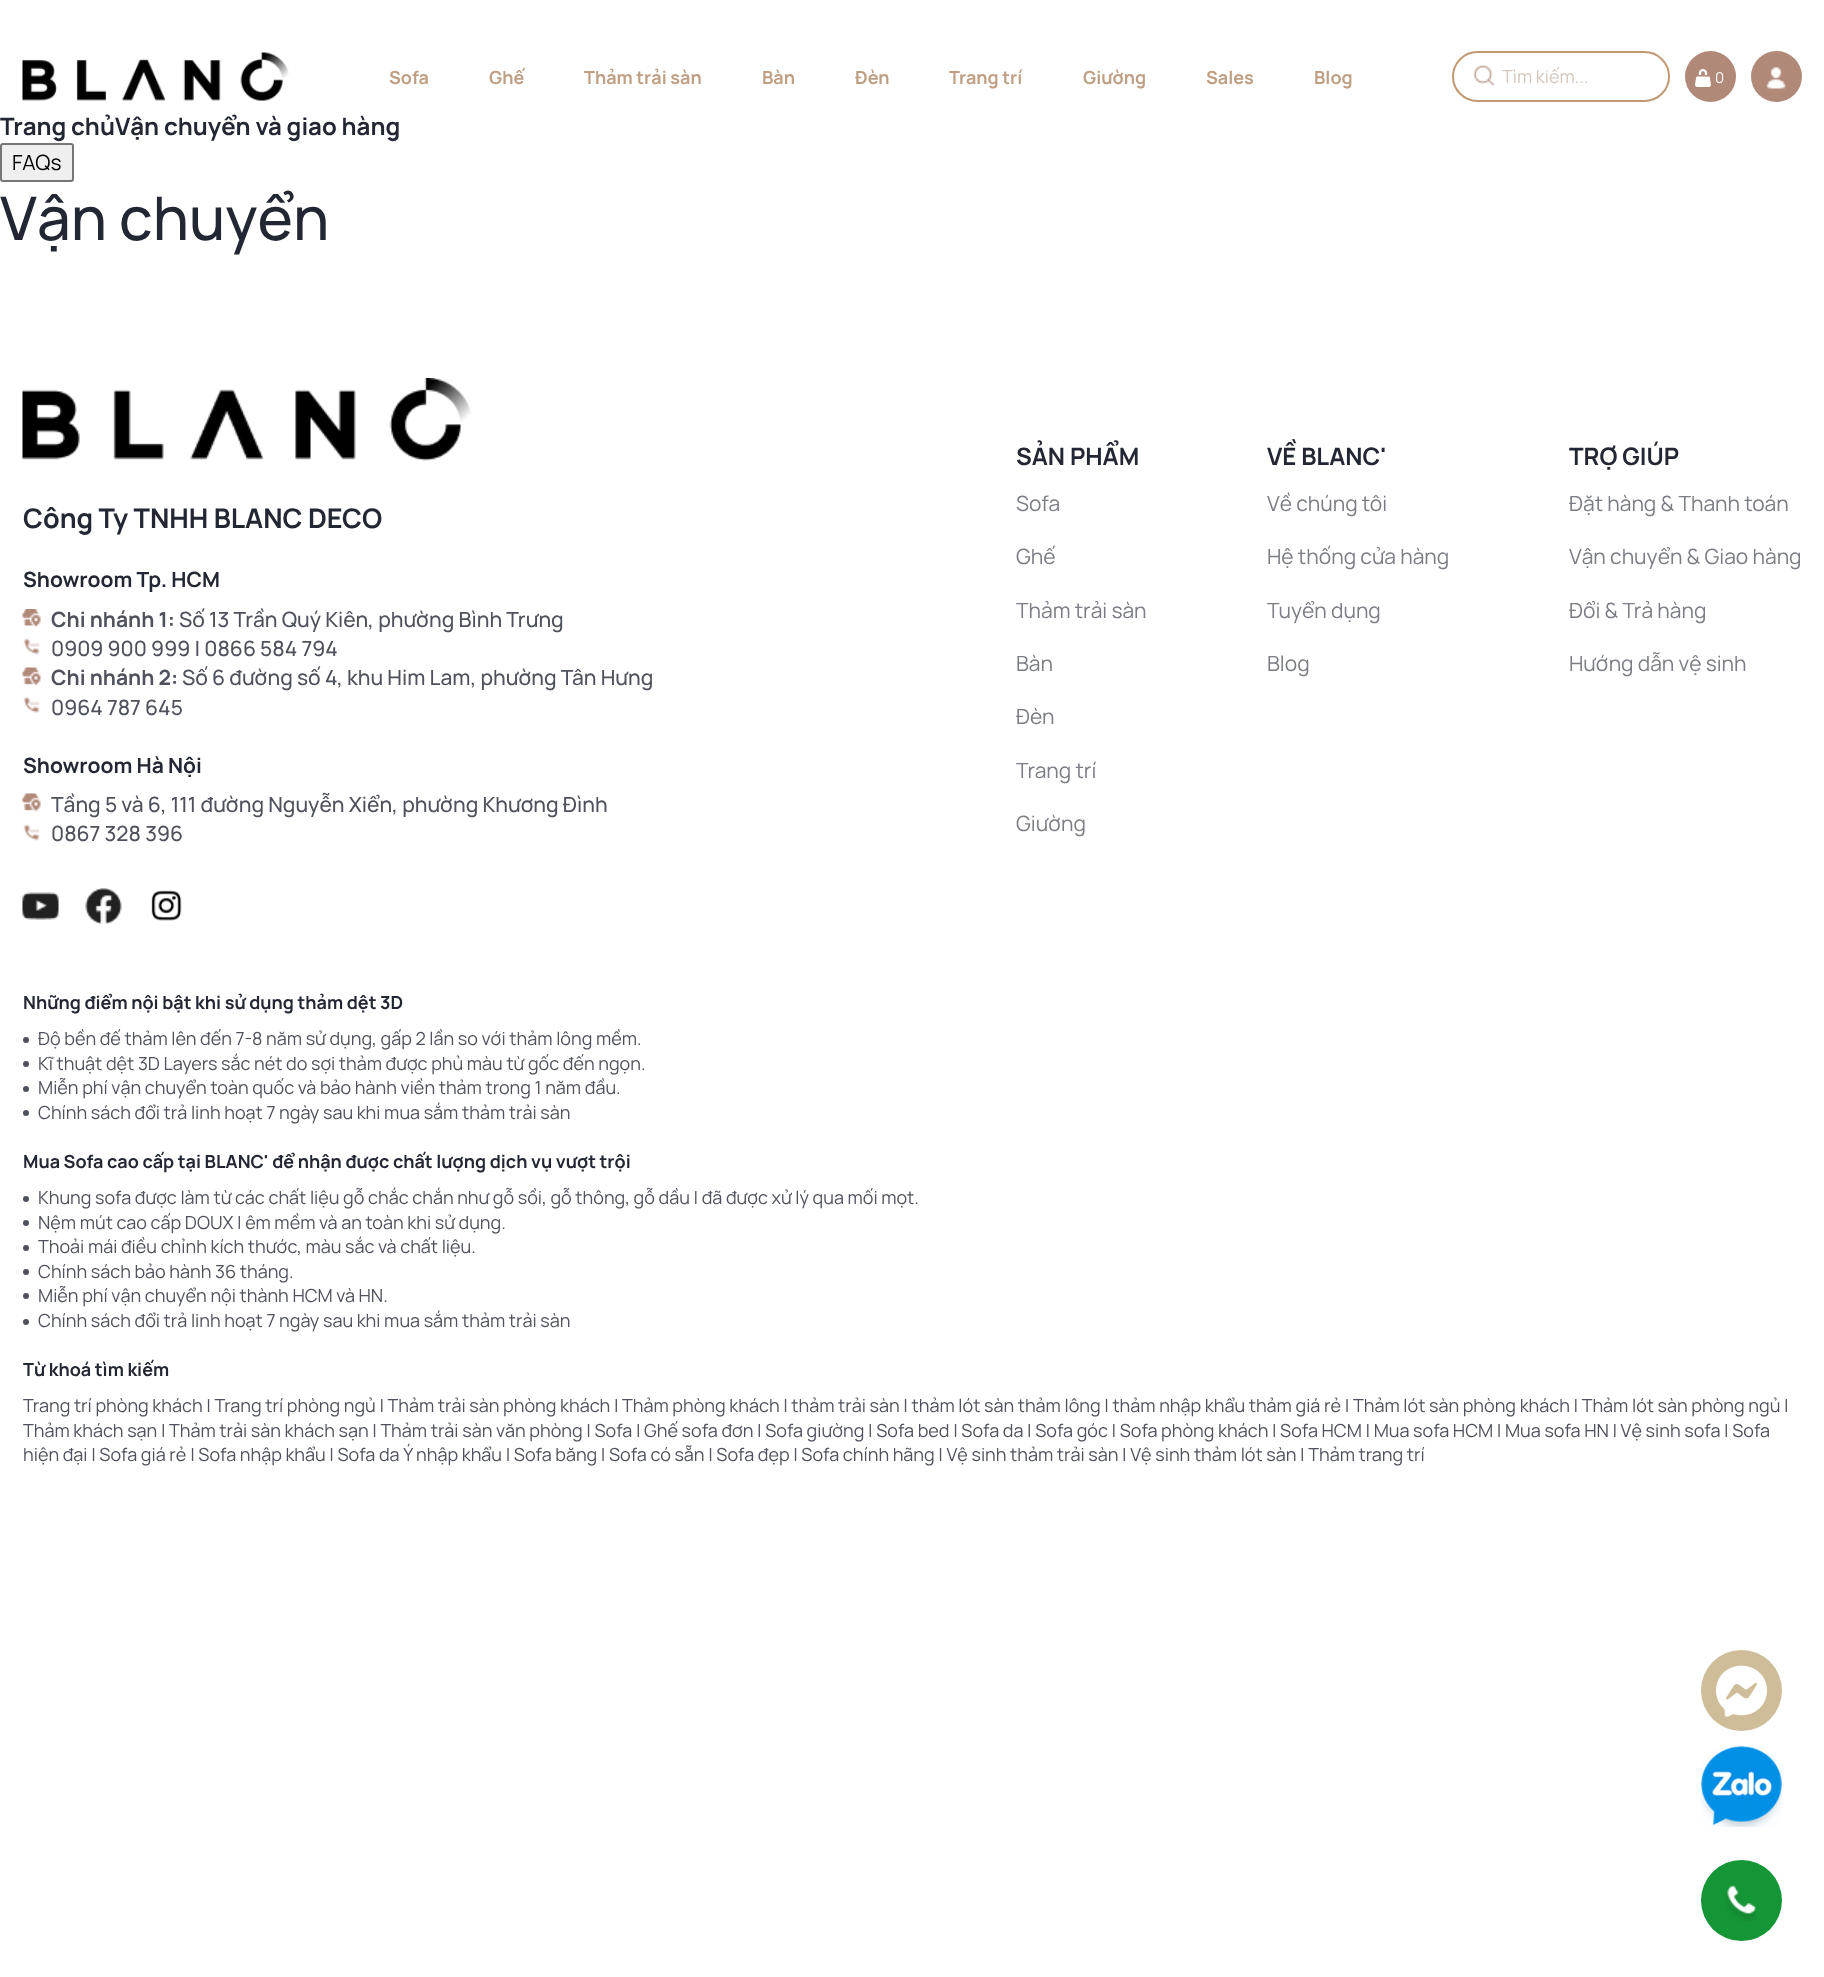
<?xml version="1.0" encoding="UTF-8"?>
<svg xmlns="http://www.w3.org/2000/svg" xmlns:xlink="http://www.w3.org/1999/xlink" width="1824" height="1977">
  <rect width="100%" height="100%" fill="#ffffff" />
  <image x="22" y="52" width="267" height="49" xlink:href="image1.png" />
  <rect x="1453" y="52" width="216" height="49" rx="24.5" fill="none" stroke="#c09972" stroke-width="2" />
  <image x="1473" y="64" width="21" height="22" xlink:href="image2.png" />
  <circle cx="1710.5" cy="76.5" r="25.5" fill="#b18979" />
  <image x="1695" y="69" width="16" height="18" xlink:href="image3.png" />
  <circle cx="1776.5" cy="76.5" r="25.5" fill="#b18979" />
  <image x="1766" y="67" width="20" height="22" xlink:href="image4.png" />
  <rect x="1" y="144" width="72" height="37" rx="2" fill="#efefef" stroke="#767676" stroke-width="2" />
  <image x="22" y="378" width="449" height="83" xlink:href="image5.png" />
  <image x="22" y="609" width="19" height="18" xlink:href="image6.png" />
  <image x="23" y="638" width="17" height="17" xlink:href="image7.png" />
  <image x="22" y="667" width="19" height="19" xlink:href="image8.png" />
  <image x="23" y="697" width="17" height="16" xlink:href="image9.png" />
  <image x="22" y="793" width="19" height="19" xlink:href="image8.png" />
  <image x="23" y="824" width="17" height="17" xlink:href="image7.png" />
  <image x="22" y="892" width="37" height="28" xlink:href="image10.png" />
  <image x="85" y="888" width="37" height="36" xlink:href="image11.png" />
  <image x="151" y="890" width="31" height="31" xlink:href="image12.png" />
  <circle cx="26" cy="1040" r="3" fill="#4f525d" />
  <circle cx="26" cy="1064" r="3" fill="#4f525d" />
  <circle cx="26" cy="1089" r="3" fill="#4f525d" />
  <circle cx="26" cy="1113" r="3" fill="#4f525d" />
  <circle cx="26" cy="1199" r="3" fill="#4f525d" />
  <circle cx="26" cy="1223" r="3" fill="#4f525d" />
  <circle cx="26" cy="1248" r="3" fill="#4f525d" />
  <circle cx="26" cy="1272" r="3" fill="#4f525d" />
  <circle cx="26" cy="1296" r="3" fill="#4f525d" />
  <circle cx="26" cy="1322" r="3" fill="#4f525d" />
  <circle cx="1741.5" cy="1690.5" r="40.5" fill="#cfbd9a" />
  <image x="1716" y="1665" width="51" height="52" xlink:href="image13.png" />
  <image x="1701" y="1746" width="81" height="81" xlink:href="image14.png" />
  <circle cx="1741.5" cy="1900.5" r="40.5" fill="#149636" />
  <image x="1725" y="1885" width="32" height="37" xlink:href="image15.png" />
  <text x="389" y="84" style="font-family: Manrope; font-size: 18px; font-weight: bold; fill: #bf9f83">Sofa</text>
  <text x="489" y="84" style="font-family: Manrope; font-size: 18px; font-weight: bold; fill: #bf9f83">Ghế</text>
  <text x="584" y="84" style="font-family: Manrope; font-size: 18px; font-weight: bold; fill: #bf9f83">Thảm trải sàn</text>
  <text x="762" y="84" style="font-family: Manrope; font-size: 18px; font-weight: bold; fill: #bf9f83">Bàn</text>
  <text x="855" y="84" style="font-family: Manrope; font-size: 18px; font-weight: bold; fill: #bf9f83">Đèn</text>
  <text x="949" y="84" style="font-family: Manrope; font-size: 18px; font-weight: bold; fill: #bf9f83">Trang trí</text>
  <text x="1083" y="84" style="font-family: Manrope; font-size: 18px; font-weight: bold; fill: #bf9f83">Giường</text>
  <text x="1206" y="84" style="font-family: Manrope; font-size: 18px; font-weight: bold; fill: #bf9f83">Sales</text>
  <text x="1314" y="84" style="font-family: Manrope; font-size: 18px; font-weight: bold; fill: #bf9f83">Blog</text>
  <text x="1502" y="83" style="font-family: Manrope; font-size: 18px; fill: #d4c6bb">Tìm kiếm...</text>
  <text x="1715" y="83" style="font-family: Manrope; font-size: 15px; fill: #ffffff">0</text>
  <text x="0" y="135" style="font-family: Manrope; font-size: 24px; font-weight: bold; fill: #232734">Trang chủVận chuyển và giao hàng</text>
  <text x="12" y="170" style="font-family: Manrope; font-size: 21px; fill: #000000">FAQs</text>
  <text x="0" y="240" style="font-family: Manrope; font-size: 60px; font-weight: 500; fill: #232734">Vận chuyển</text>
  <text x="23" y="528" style="font-family: Manrope; font-size: 27px; font-weight: bold; fill: #232734">Công Ty TNHH BLANC DECO</text>
  <text x="23" y="587" style="font-family: Manrope; font-size: 21px; font-weight: bold; fill: #232734">Showroom Tp. HCM</text>
  <text x="51" y="627" style="font-family: Manrope; font-size: 21px; font-weight: bold; fill: #4f525d">Chi nhánh 1:</text>
  <text x="179" y="627" style="font-family: Manrope; font-size: 21px; font-weight: 500; fill: #4f525d">Số 13 Trần Quý Kiên, phường Bình Trưng</text>
  <text x="51" y="656" style="font-family: Manrope; font-size: 21px; font-weight: 500; fill: #4f525d">0909 900 999 | 0866 584 794</text>
  <text x="51" y="685" style="font-family: Manrope; font-size: 21px; font-weight: bold; fill: #4f525d">Chi nhánh 2:</text>
  <text x="182" y="685" style="font-family: Manrope; font-size: 21px; font-weight: 500; fill: #4f525d">Số 6 đường số 4, khu Him Lam, phường Tân Hưng</text>
  <text x="51" y="715" style="font-family: Manrope; font-size: 21px; font-weight: 500; fill: #4f525d">0964 787 645</text>
  <text x="23" y="773" style="font-family: Manrope; font-size: 21px; font-weight: bold; fill: #232734">Showroom Hà Nội</text>
  <text x="51" y="812" style="font-family: Manrope; font-size: 21px; font-weight: 500; fill: #4f525d">Tầng 5 và 6, 111 đường Nguyễn Xiển, phường Khương Đình</text>
  <text x="51" y="841" style="font-family: Manrope; font-size: 21px; font-weight: 500; fill: #4f525d">0867 328 396</text>
  <text x="1016" y="465" style="font-family: Manrope; font-size: 24px; font-weight: bold; fill: #232734">SẢN PHẨM</text>
  <text x="1016" y="511" style="font-family: Manrope; font-size: 21px; fill: #7b7d85">Sofa</text>
  <text x="1016" y="564" style="font-family: Manrope; font-size: 21px; fill: #7b7d85">Ghế</text>
  <text x="1016" y="618" style="font-family: Manrope; font-size: 21px; fill: #7b7d85">Thảm trải sàn</text>
  <text x="1016" y="671" style="font-family: Manrope; font-size: 21px; fill: #7b7d85">Bàn</text>
  <text x="1016" y="724" style="font-family: Manrope; font-size: 21px; fill: #7b7d85">Đèn</text>
  <text x="1016" y="778" style="font-family: Manrope; font-size: 21px; fill: #7b7d85">Trang trí</text>
  <text x="1016" y="831" style="font-family: Manrope; font-size: 21px; fill: #7b7d85">Giường</text>
  <text x="1267" y="465" style="font-family: Manrope; font-size: 24px; font-weight: bold; fill: #232734">VỀ BLANC'</text>
  <text x="1267" y="511" style="font-family: Manrope; font-size: 21px; fill: #7b7d85">Về chúng tôi</text>
  <text x="1267" y="564" style="font-family: Manrope; font-size: 21px; fill: #7b7d85">Hệ thống cửa hàng</text>
  <text x="1267" y="618" style="font-family: Manrope; font-size: 21px; fill: #7b7d85">Tuyển dụng</text>
  <text x="1267" y="671" style="font-family: Manrope; font-size: 21px; fill: #7b7d85">Blog</text>
  <text x="1569" y="465" style="font-family: Manrope; font-size: 24px; font-weight: bold; fill: #232734">TRỢ GIÚP</text>
  <text x="1569" y="511" style="font-family: Manrope; font-size: 21px; fill: #7b7d85">Đặt hàng &amp; Thanh toán</text>
  <text x="1569" y="564" style="font-family: Manrope; font-size: 21px; fill: #7b7d85">Vận chuyển &amp; Giao hàng</text>
  <text x="1569" y="618" style="font-family: Manrope; font-size: 21px; fill: #7b7d85">Đổi &amp; Trả hàng</text>
  <text x="1569" y="671" style="font-family: Manrope; font-size: 21px; fill: #7b7d85">Hướng dẫn vệ sinh</text>
  <text x="23" y="1009" style="font-family: Manrope; font-size: 18px; font-weight: bold; fill: #232734">Những điểm nội bật khi sử dụng thảm dệt 3D</text>
  <text x="38" y="1045" style="font-family: Manrope; font-size: 18px; fill: #4f525d">Độ bền đế thảm lên đến 7-8 năm sử dụng, gấp 2 lần so với thảm lông mềm.</text>
  <text x="38" y="1070" style="font-family: Manrope; font-size: 18px; fill: #4f525d">Kĩ thuật dệt 3D Layers sắc nét do sợi thảm được phủ màu từ gốc đến ngọn.</text>
  <text x="38" y="1094" style="font-family: Manrope; font-size: 18px; fill: #4f525d">Miễn phí vận chuyển toàn quốc và bảo hành viền thảm trong 1 năm đầu.</text>
  <text x="38" y="1119" style="font-family: Manrope; font-size: 18px; fill: #4f525d">Chính sách đổi trả linh hoạt 7 ngày sau khi mua sắm thảm trải sàn</text>
  <text x="23" y="1168" style="font-family: Manrope; font-size: 18px; font-weight: bold; fill: #232734">Mua Sofa cao cấp tại BLANC' để nhận được chất lượng dịch vụ vượt trội</text>
  <text x="38" y="1204" style="font-family: Manrope; font-size: 18px; fill: #4f525d">Khung sofa được làm từ các chất liệu gỗ chắc chắn như gỗ sồi, gỗ thông, gỗ dầu | đã được xử lý qua mối mọt.</text>
  <text x="38" y="1229" style="font-family: Manrope; font-size: 18px; fill: #4f525d">Nệm mút cao cấp DOUX | êm mềm và an toàn khi sử dụng.</text>
  <text x="38" y="1253" style="font-family: Manrope; font-size: 18px; fill: #4f525d">Thoải mái điều chỉnh kích thước, màu sắc và chất liệu.</text>
  <text x="38" y="1278" style="font-family: Manrope; font-size: 18px; fill: #4f525d">Chính sách bảo hành 36 tháng.</text>
  <text x="38" y="1302" style="font-family: Manrope; font-size: 18px; fill: #4f525d">Miễn phí vận chuyển nội thành HCM và HN.</text>
  <text x="38" y="1327" style="font-family: Manrope; font-size: 18px; fill: #4f525d">Chính sách đổi trả linh hoạt 7 ngày sau khi mua sắm thảm trải sàn</text>
  <text x="23" y="1376" style="font-family: Manrope; font-size: 18px; font-weight: bold; fill: #232734">Từ khoá tìm kiếm</text>
  <text x="23" y="1412" style="font-family: Manrope; font-size: 18px; fill: #4f525d">Trang trí phòng khách | Trang trí phòng ngủ | Thảm trải sàn phòng khách | Thảm phòng khách | thảm trải sàn | thảm lót sàn thảm lông | thảm nhập khẩu thảm giá rẻ | Thảm lót sàn phòng khách | Thảm lót sàn phòng ngủ |</text>
  <text x="23" y="1437" style="font-family: Manrope; font-size: 18px; fill: #4f525d">Thảm khách sạn | Thảm trải sàn khách sạn | Thảm trải sàn văn phòng | Sofa | Ghế sofa đơn | Sofa giường | Sofa bed | Sofa da | Sofa góc | Sofa phòng khách | Sofa HCM | Mua sofa HCM | Mua sofa HN | Vệ sinh sofa | Sofa</text>
  <text x="23" y="1461" style="font-family: Manrope; font-size: 18px; fill: #4f525d">hiện đại | Sofa giá rẻ | Sofa nhập khẩu | Sofa da Ý nhập khẩu | Sofa băng | Sofa có sẵn | Sofa đẹp | Sofa chính hãng | Vệ sinh thảm trải sàn | Vệ sinh thảm lót sàn | Thảm trang trí</text>
</svg>
